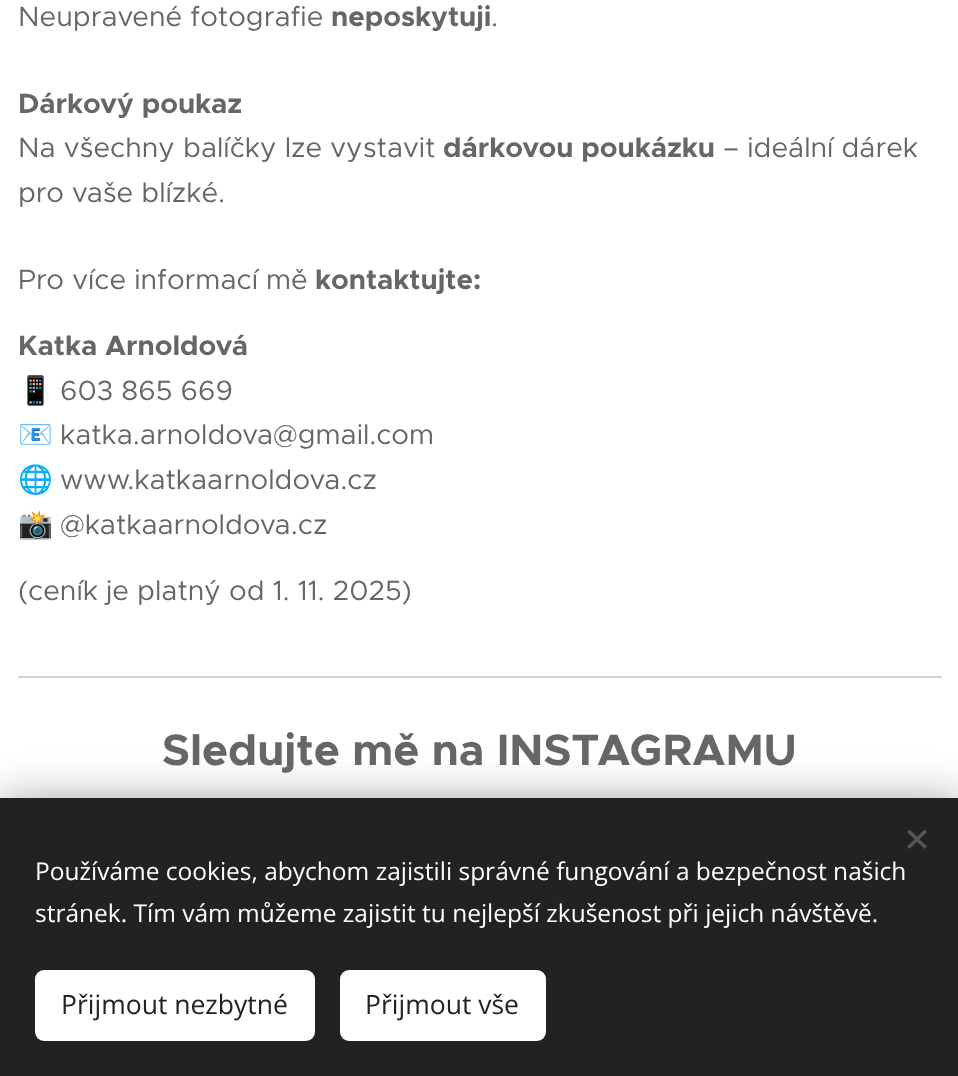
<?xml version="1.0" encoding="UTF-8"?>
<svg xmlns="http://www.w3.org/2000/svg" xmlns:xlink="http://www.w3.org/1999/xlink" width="958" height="1076">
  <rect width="100%" height="100%" fill="#ffffff" />
  <rect x="18" y="676" width="924" height="2" fill="#d4d4d4" />
  <rect y="798" width="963" height="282" fill="#000000" fill-opacity="0.33" filter="blur(22px)" />
  <rect y="798" width="958" height="278" fill="#222222" />
  <path d="M 907 846.5 l 17.5 -17 l 2.5 2.5 l -17.5 17 z" fill="#555555" />
  <path d="M 909.5 829.5 l 17.5 17 l -2.5 2.5 l -17.5 -17 z" fill="#555555" />
  <rect x="35" y="970" width="280" height="71" rx="9" fill="#ffffff" />
  <rect x="340" y="970" width="206" height="71" rx="9" fill="#ffffff" />
  <text x="18" y="26" style="font-family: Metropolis; font-size: 28px; fill: #666666">Neupravené fotografie</text>
  <text x="331" y="26" style="font-family: Metropolis; font-size: 28px; font-weight: bold; fill: #666666">neposkytuji</text>
  <text x="491" y="26" style="font-family: Metropolis; font-size: 28px; fill: #666666">.</text>
  <text x="18" y="113" style="font-family: Metropolis; font-size: 28px; font-weight: bold; fill: #666666">Dárkový poukaz</text>
  <text x="18" y="157" style="font-family: Metropolis; font-size: 28px; fill: #666666">Na všechny balíčky lze vystavit</text>
  <text x="443" y="157" style="font-family: Metropolis; font-size: 28px; font-weight: bold; fill: #666666">dárkovou poukázku</text>
  <text x="723" y="157" style="font-family: Metropolis; font-size: 28px; fill: #666666">– ideální dárek</text>
  <text x="18" y="202" style="font-family: Metropolis; font-size: 28px; fill: #666666">pro vaše blízké.</text>
  <text x="18" y="289" style="font-family: Metropolis; font-size: 28px; fill: #666666">Pro více informací mě</text>
  <text x="315" y="289" style="font-family: Metropolis; font-size: 28px; font-weight: bold; fill: #666666">kontaktujte:</text>
  <text x="18" y="355" style="font-family: Metropolis; font-size: 28px; font-weight: bold; fill: #666666">Katka Arnoldová</text>
  <text x="18" y="400" style="font-family: Noto Color Emoji; font-size: 28px; fill: #666666">📱</text>
  <text x="60" y="400" style="font-family: Metropolis; font-size: 28px; fill: #666666">603 865 669</text>
  <text x="18" y="444" style="font-family: Noto Color Emoji; font-size: 28px; fill: #666666">📧</text>
  <text x="60" y="444" style="font-family: Metropolis; font-size: 28px; fill: #666666">katka.arnoldova@gmail.com</text>
  <text x="18" y="489" style="font-family: Noto Color Emoji; font-size: 28px; fill: #666666">🌐</text>
  <text x="60" y="489" style="font-family: Metropolis; font-size: 28px; fill: #666666">www.katkaarnoldova.cz</text>
  <text x="18" y="534" style="font-family: Noto Color Emoji; font-size: 28px; fill: #666666">📸</text>
  <text x="60" y="534" style="font-family: Metropolis; font-size: 28px; fill: #666666">@katkaarnoldova.cz</text>
  <text x="18" y="600" style="font-family: Metropolis; font-size: 28px; fill: #666666">(ceník je platný od 1. 11. 2025)</text>
  <text x="162" y="765" style="font-family: Metropolis; font-size: 44.1px; font-weight: bold; fill: #666666">Sledujte mě na INSTAGRAMU</text>
  <text x="35" y="880" style="font-family: Open Sans; font-size: 24.5px; fill: #ffffff">Používáme cookies, abychom zajistili správné fungování a bezpečnost našich</text>
  <text x="35" y="922" style="font-family: Open Sans; font-size: 24.5px; fill: #ffffff">stránek. Tím vám můžeme zajistit tu nejlepší zkušenost při jejich návštěvě.</text>
  <text x="61" y="1014" style="font-family: Open Sans; font-size: 26.5px; fill: #222222">Přijmout nezbytné</text>
  <text x="365" y="1014" style="font-family: Open Sans; font-size: 26.5px; fill: #222222">Přijmout vše</text>
</svg>
